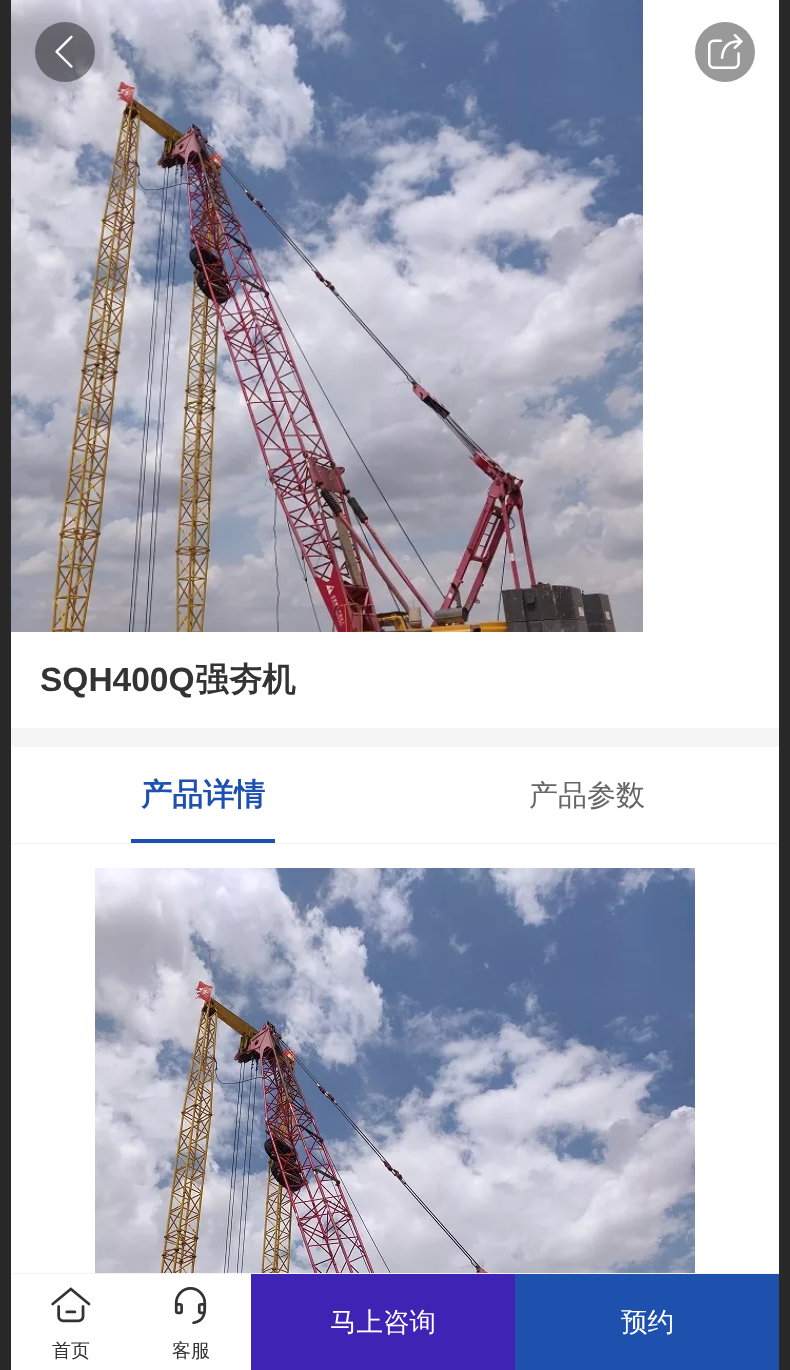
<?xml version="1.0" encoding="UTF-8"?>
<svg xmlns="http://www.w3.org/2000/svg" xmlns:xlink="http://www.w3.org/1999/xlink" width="790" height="1370">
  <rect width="100%" height="100%" fill="#ffffff" />
  <rect width="11" height="1370" fill="#282828" />
  <image x="11" y="0" width="632" height="632" xlink:href="image1.png" />
  <circle cx="65" cy="52" r="30" fill="#000000" fill-opacity="0.4" />
  <circle cx="725" cy="52" r="30" fill="#999999" />
  <rect x="11" y="728" width="768" height="19" fill="#f5f5f5" />
  <rect x="11" y="843" width="768" height="1" fill="#f3f3f3" />
  <rect x="131" y="839" width="144" height="4" fill="#1e50ae" />
  <image x="95" y="868" width="600" height="405" xlink:href="image2.png" />
  <rect x="11" y="1273" width="768" height="1" fill="#f3f3f3" />
  <rect x="251" y="1274" width="264" height="96" fill="#3f23b4" />
  <rect x="515" y="1274" width="264" height="96" fill="#1e50ae" />
  <rect x="779" width="11" height="1370" fill="#282828" />
  <text x="48" y="65" style="font-family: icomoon; font-size: 32px; fill: #ffffff">򰊔</text>
  <text x="708" y="66" style="font-family: icomoon; font-size: 35px; fill: #ffffff">򰌑</text>
  <text x="40" y="691" style="font-family: Liberation Sans; font-size: 33.5px; font-weight: bold; fill: #333333">SQH400Q</text>
  <text x="195" y="691" style="font-family: WenQuanYi Zen Hei; font-size: 33.5px; font-weight: bold; fill: #333333">强夯机</text>
  <text x="141" y="805" style="font-family: WenQuanYi Zen Hei; font-size: 31px; font-weight: bold; fill: #1e50ae">产品详情</text>
  <text x="529" y="805" style="font-family: WenQuanYi Zen Hei; font-size: 29px; font-weight: 500; fill: #666666">产品参数</text>
  <text x="51" y="1321" style="font-family: icomoon; font-size: 39px; fill: #333333">򰌓</text>
  <text x="52" y="1357" style="font-family: WenQuanYi Zen Hei; font-size: 19px; font-weight: 500; fill: #333333">首页</text>
  <text x="172" y="1321" style="font-family: icomoon; font-size: 37px; fill: #333333">򰊘</text>
  <text x="172" y="1357" style="font-family: WenQuanYi Zen Hei; font-size: 19px; font-weight: 500; fill: #333333">客服</text>
  <text x="330" y="1331" style="font-family: WenQuanYi Zen Hei; font-size: 26.5px; font-weight: 500; fill: #ffffff">马上咨询</text>
  <text x="621" y="1331" style="font-family: WenQuanYi Zen Hei; font-size: 26.5px; font-weight: 500; fill: #ffffff">预约</text>
</svg>
